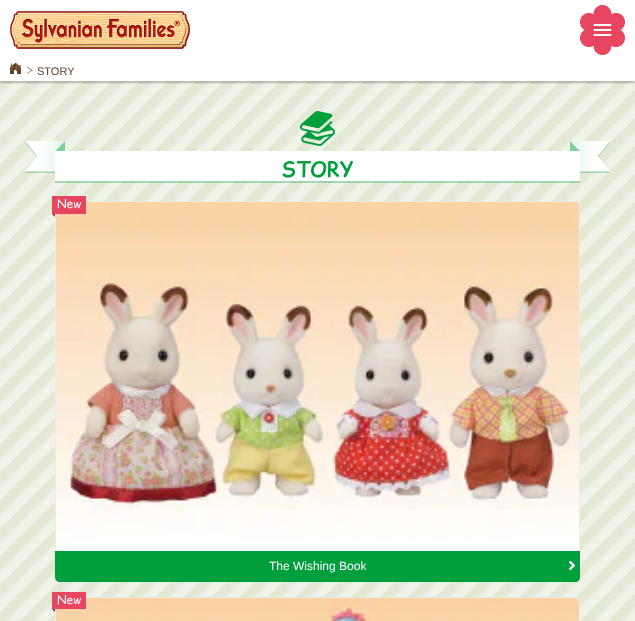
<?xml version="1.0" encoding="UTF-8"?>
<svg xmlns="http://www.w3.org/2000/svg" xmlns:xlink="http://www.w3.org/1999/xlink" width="635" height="621">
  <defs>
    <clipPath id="clip1"><rect x="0" y="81" width="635" height="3" /></clipPath>
    <clipPath id="clip2"><rect x="10" y="61" width="11" height="14" /></clipPath>
  </defs>
  <rect width="100%" height="100%" fill="#ffffff" />
  <image x="10" y="11" width="180" height="38" xlink:href="image1.png" />
  <image x="580" y="5" width="45" height="50" xlink:href="image2.png" />
  <image x="0" y="81" width="635" height="540" xlink:href="image5.png" />
  <g clip-path="url(#clip1)">
    <rect y="62" width="635" height="21" fill="#000000" fill-opacity="0.25" filter="blur(1px)" />
  </g>
  <image x="27" y="67" width="6" height="7" xlink:href="image3.png" />
  <image x="10" y="63" width="11" height="11" xlink:href="image4.png" />
  <image x="300" y="111" width="35" height="35" xlink:href="image6.png" />
  <image x="25" y="141" width="40" height="32" xlink:href="image7.png" />
  <image x="570" y="141" width="40" height="32" xlink:href="image8.png" />
  <rect x="55" y="151" width="525" height="30" fill="#ffffff" />
  <rect x="55" y="181" width="525" height="2" fill="#009f3e" fill-opacity="0.3" />
  <image x="56" y="201" width="524" height="350" xlink:href="image9.png" />
  <path d="M 60 201 h 515 c 3 0 5 2 5 5 v 366 h -525 v -366 c 0 -3 2 -5 5 -5 z m 0 1 h 515 c 2 0 4 2 4 4 v 366 h -523 v -366 c 0 -2 2 -4 4 -4 z" fill="#efebe8" fill-rule="evenodd" />
  <rect x="52" y="196" width="34" height="18" fill="#e84660" />
  <path d="M 55 214 v 3 l -3 -3 z" fill="#a21f2d" />
  <path d="M 55 551 h 525 v 26 c 0 3 -2 5 -5 5 h -515 c -3 0 -5 -2 -5 -5 z" fill="#009f3e" />
  <image x="569" y="561" width="6" height="9" xlink:href="image10.png" />
  <image x="56" y="597" width="524" height="24" xlink:href="image11.png" />
  <path d="M 60 597 h 515 c 3 0 5 2 5 5 v 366 h -525 v -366 c 0 -3 2 -5 5 -5 z m 0 1 h 515 c 2 0 4 2 4 4 v 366 h -523 v -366 c 0 -2 2 -4 4 -4 z" fill="#efebe8" fill-rule="evenodd" />
  <rect x="52" y="592" width="34" height="17" fill="#e84660" />
  <path d="M 55 609 v 3 l -3 -3 z" fill="#a21f2d" />
  <g clip-path="url(#clip2)">
    <text x="10" y="71" style="font-family: Liberation Sans; font-size: 11px; fill: #826650">Ho</text>
  </g>
  <text x="37" y="75" style="font-family: Liberation Sans; font-size: 11px; fill: #603c21">STORY</text>
  <text x="281" y="177" style="font-family: Comic Relief; font-size: 21px; font-weight: bold; fill: #009f3e">STORY</text>
  <text x="57" y="208" style="font-family: Comic Relief; font-size: 12px; fill: #ffffff">New</text>
  <text x="269" y="570" style="font-family: Liberation Sans; font-size: 12px; fill: #ffffff">The Wishing Book</text>
  <text x="57" y="604" style="font-family: Comic Relief; font-size: 12px; fill: #ffffff">New</text>
</svg>
